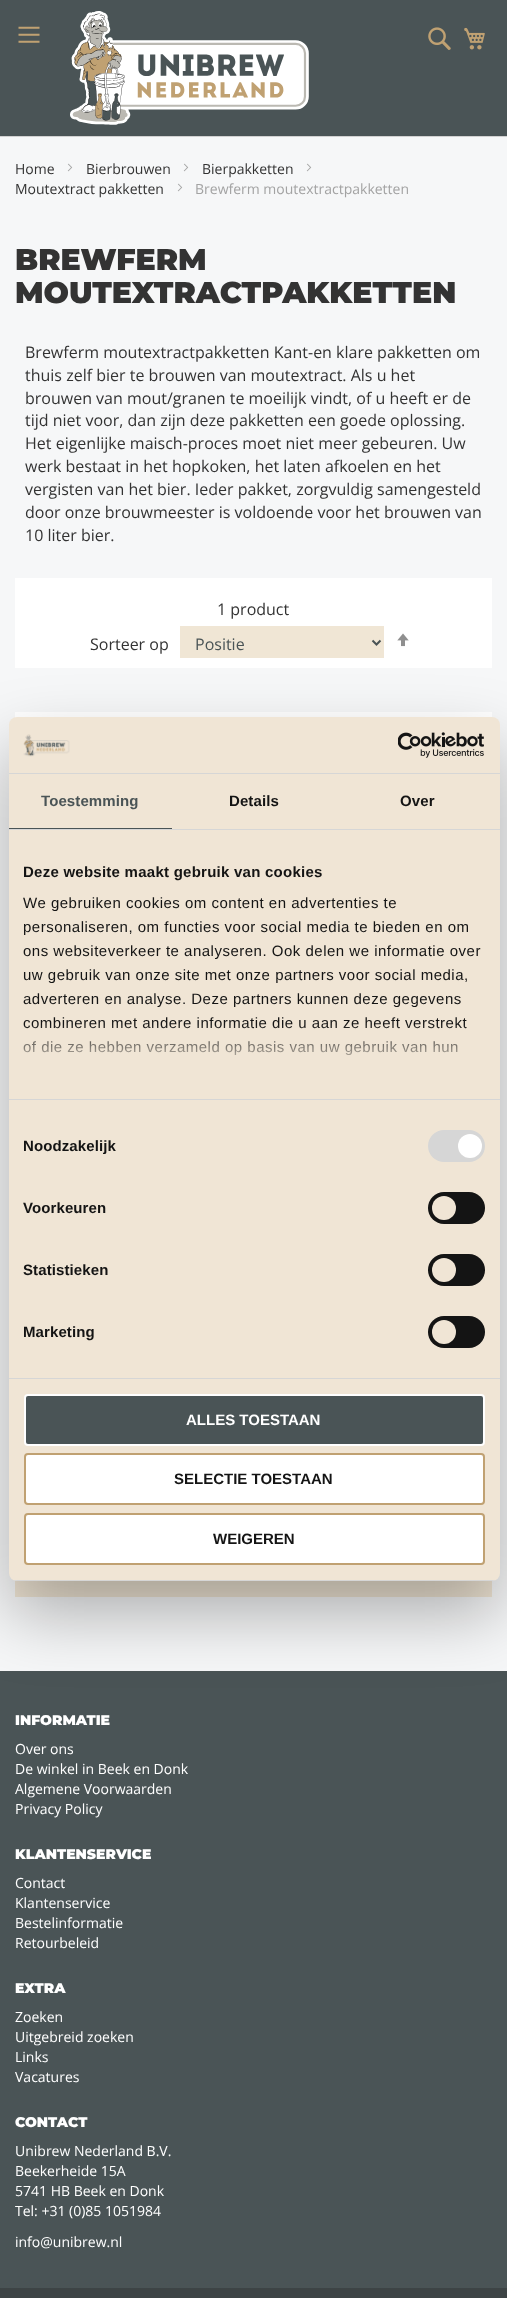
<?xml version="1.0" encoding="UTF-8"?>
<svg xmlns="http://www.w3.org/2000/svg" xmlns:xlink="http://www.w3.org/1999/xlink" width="507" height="2298">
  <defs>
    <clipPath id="clip1"><rect x="9" y="717" width="491" height="864" rx="8" /></clipPath>
    <linearGradient id="g1" gradientUnits="userSpaceOnUse" x1="248" y1="1099" x2="248" y2="1024"><stop offset="0" stop-color="#f0e5d5" /><stop offset="0.5" stop-color="#f0e5d5" stop-opacity="0.8" /><stop offset="1" stop-color="#f0e5d5" stop-opacity="0" /></linearGradient>
  </defs>
  <rect width="100%" height="100%" fill="#f6f7f8" />
  <rect y="136" width="507" height="1" fill="#d1d1d1" />
  <rect width="507" height="136" fill="#4a5456" />
  <image x="70" y="11" width="239" height="114" xlink:href="image1.png" />
  <image x="428" y="27" width="23" height="23" xlink:href="image2.png" />
  <image x="464" y="27" width="21" height="23" xlink:href="image3.png" />
  <image x="18" y="26" width="22" height="17" xlink:href="image4.png" />
  <image x="67" y="163" width="6" height="9" xlink:href="image5.png" />
  <image x="183" y="163" width="6" height="9" xlink:href="image5.png" />
  <image x="306" y="163" width="6" height="9" xlink:href="image5.png" />
  <image x="177" y="183" width="6" height="9" xlink:href="image5.png" />
  <rect x="15" y="578" width="477" height="90" fill="#ffffff" />
  <rect x="180" y="626" width="204" height="32" fill="#f0e6d5" />
  <path d="M 372.5 640.5 l 4 4 l 4 -4" fill="none" stroke="#4a5456" stroke-width="2" />
  <image x="397" y="633" width="12" height="14" xlink:href="image6.png" />
  <rect x="15" y="712" width="477" height="6" fill="#ffffff" />
  <rect x="15" y="1580" width="477" height="17" fill="#f0e6d5" />
  <rect y="1671" width="507" height="617" fill="#4a5456" />
  <rect y="2288" width="507" height="10" fill="#3d4445" />
  <rect x="9" y="749" width="491" height="864" rx="8" fill="#000000" fill-opacity="0.3" filter="blur(34px)" />
  <rect x="9" y="717" width="491" height="864" rx="8" fill="#f0e5d5" />
  <rect x="9" y="773" width="491" height="1" fill="#d6d6d6" />
  <image x="23" y="734" width="47" height="23" xlink:href="image7.png" />
  <image x="398" y="732" width="86" height="26" xlink:href="image8.png" />
  <rect x="9" y="829" width="491" height="1" fill="#d6d6d6" />
  <rect x="9" y="828" width="163" height="1" fill="#4a5456" />
  <rect x="9" y="1099" width="491" height="1" fill="#d6d6d6" />
  <rect x="9" y="1378" width="491" height="1" fill="#d6d6d6" />
  <rect x="428" y="1130" width="57" height="32" rx="16" fill="#d6d6d6" />
  <circle cx="470" cy="1146" r="12" fill="#ffffff" />
  <rect x="428" y="1192" width="57" height="32" rx="16" fill="#141414" />
  <circle cx="444" cy="1208" r="12" fill="#f0e5d5" />
  <rect x="428" y="1254" width="57" height="32" rx="16" fill="#141414" />
  <circle cx="444" cy="1270" r="12" fill="#f0e5d5" />
  <rect x="428" y="1316" width="57" height="32" rx="16" fill="#141414" />
  <circle cx="444" cy="1332" r="12" fill="#f0e5d5" />
  <g clip-path="url(#clip1)">
    <rect x="9" y="1580" width="491" height="1" fill="#d6d6d6" />
  </g>
  <rect x="25" y="1395" width="459" height="50" rx="3" fill="#4a5456" stroke="#ffffff" stroke-width="2" />
  <rect x="25" y="1454" width="459" height="50" rx="3" fill="#ffffff" stroke="#c0a172" stroke-width="2" />
  <rect x="25" y="1514" width="459" height="50" rx="3" fill="#ffffff" stroke="#c0a172" stroke-width="2" />
  <text x="15" y="174" style="font-family: Open Sans; font-size: 14px; fill: #333333">Home</text>
  <text x="86" y="174" style="font-family: Open Sans; font-size: 14px; fill: #333333">Bierbrouwen</text>
  <text x="202" y="174" style="font-family: Open Sans; font-size: 14px; fill: #333333">Bierpakketten</text>
  <text x="15" y="194" style="font-family: Open Sans; font-size: 14px; fill: #333333">Moutextract pakketten</text>
  <text x="195" y="194" style="font-family: Open Sans; font-size: 14px; fill: #a3a3a3">Brewferm moutextractpakketten</text>
  <text x="15" y="270" style="font-family: Montserrat; font-size: 30px; font-weight: 900; fill: #333333">BREWFERM</text>
  <text x="15" y="303" style="font-family: Montserrat; font-size: 30px; font-weight: 900; fill: #333333">MOUTEXTRACTPAKKETTEN</text>
  <text x="25" y="358" style="font-family: Open Sans; font-size: 16px; fill: #333333">Brewferm moutextractpakketten Kant-en klare pakketten om</text>
  <text x="25" y="381" style="font-family: Open Sans; font-size: 16px; fill: #333333">thuis zelf bier te brouwen van moutextract. Als u het</text>
  <text x="25" y="404" style="font-family: Open Sans; font-size: 16px; fill: #333333">brouwen van mout/granen te moeilijk vindt, of u heeft er de</text>
  <text x="25" y="426" style="font-family: Open Sans; font-size: 16px; fill: #333333">tijd niet voor, dan zijn deze pakketten een goede oplossing.</text>
  <text x="25" y="449" style="font-family: Open Sans; font-size: 16px; fill: #333333">Het eigenlijke maisch-proces moet niet meer gebeuren. Uw</text>
  <text x="25" y="472" style="font-family: Open Sans; font-size: 16px; fill: #333333">werk bestaat in het hopkoken, het laten afkoelen en het</text>
  <text x="25" y="495" style="font-family: Open Sans; font-size: 16px; fill: #333333">vergisten van het bier. Ieder pakket, zorgvuldig samengesteld</text>
  <text x="25" y="518" style="font-family: Open Sans; font-size: 16px; fill: #333333">door onze brouwmeester is voldoende voor het brouwen van</text>
  <text x="25" y="541" style="font-family: Open Sans; font-size: 16px; fill: #333333">10 liter bier.</text>
  <text x="217" y="615" style="font-family: Open Sans; font-size: 16px; fill: #333333">1 product</text>
  <text x="90" y="650" style="font-family: Open Sans; font-size: 16px; fill: #333333">Sorteer op</text>
  <text x="195" y="650" style="font-family: Open Sans; font-size: 16px; fill: #4a5456">Positie</text>
  <text x="15" y="1725" style="font-family: Montserrat; font-size: 14px; font-weight: 900; fill: #ffffff">INFORMATIE</text>
  <text x="15" y="1754" style="font-family: Open Sans; font-size: 14px; fill: #ffffff">Over ons</text>
  <text x="15" y="1774" style="font-family: Open Sans; font-size: 14px; fill: #ffffff">De winkel in Beek en Donk</text>
  <text x="15" y="1794" style="font-family: Open Sans; font-size: 14px; fill: #ffffff">Algemene Voorwaarden</text>
  <text x="15" y="1814" style="font-family: Open Sans; font-size: 14px; fill: #ffffff">Privacy Policy</text>
  <text x="15" y="1859" style="font-family: Montserrat; font-size: 14px; font-weight: 900; fill: #ffffff">KLANTENSERVICE</text>
  <text x="15" y="1888" style="font-family: Open Sans; font-size: 14px; fill: #ffffff">Contact</text>
  <text x="15" y="1908" style="font-family: Open Sans; font-size: 14px; fill: #ffffff">Klantenservice</text>
  <text x="15" y="1928" style="font-family: Open Sans; font-size: 14px; fill: #ffffff">Bestelinformatie</text>
  <text x="15" y="1948" style="font-family: Open Sans; font-size: 14px; fill: #ffffff">Retourbeleid</text>
  <text x="15" y="1993" style="font-family: Montserrat; font-size: 14px; font-weight: 900; fill: #ffffff">EXTRA</text>
  <text x="15" y="2022" style="font-family: Open Sans; font-size: 14px; fill: #ffffff">Zoeken</text>
  <text x="15" y="2042" style="font-family: Open Sans; font-size: 14px; fill: #ffffff">Uitgebreid zoeken</text>
  <text x="15" y="2062" style="font-family: Open Sans; font-size: 14px; fill: #ffffff">Links</text>
  <text x="15" y="2082" style="font-family: Open Sans; font-size: 14px; fill: #ffffff">Vacatures</text>
  <text x="15" y="2127" style="font-family: Montserrat; font-size: 14px; font-weight: 900; fill: #ffffff">CONTACT</text>
  <text x="15" y="2156" style="font-family: Open Sans; font-size: 14px; fill: #ffffff">Unibrew Nederland B.V.</text>
  <text x="15" y="2176" style="font-family: Open Sans; font-size: 14px; fill: #ffffff">Beekerheide 15A</text>
  <text x="15" y="2196" style="font-family: Open Sans; font-size: 14px; fill: #ffffff">5741 HB Beek en Donk</text>
  <text x="15" y="2216" style="font-family: Open Sans; font-size: 14px; fill: #ffffff">Tel: +31 (0)85 1051984</text>
  <text x="15" y="2247" style="font-family: Open Sans; font-size: 14px; fill: #ffffff">info@unibrew.nl</text>
  <text x="41" y="806" style="font-family: Liberation Sans; font-size: 15px; font-weight: bold; letter-spacing: 0.1px; fill: #4a5456">Toestemming</text>
  <text x="229" y="806" style="font-family: Liberation Sans; font-size: 15px; font-weight: bold; letter-spacing: 0.1px; fill: #141414">Details</text>
  <text x="400" y="806" style="font-family: Liberation Sans; font-size: 15px; font-weight: bold; letter-spacing: 0.1px; fill: #141414">Over</text>
  <text x="23" y="877" style="font-family: Liberation Sans; font-size: 15px; font-weight: bold; letter-spacing: 0.25px; fill: #141414">Deze website maakt gebruik van cookies</text>
  <text x="23" y="908" style="font-family: Liberation Sans; font-size: 15px; letter-spacing: 0.5px; fill: #141414">We gebruiken cookies om content en advertenties te</text>
  <text x="23" y="932" style="font-family: Liberation Sans; font-size: 15px; letter-spacing: 0.5px; fill: #141414">personaliseren, om functies voor social media te bieden en om</text>
  <text x="23" y="956" style="font-family: Liberation Sans; font-size: 15px; letter-spacing: 0.5px; fill: #141414">ons websiteverkeer te analyseren. Ook delen we informatie over</text>
  <text x="23" y="980" style="font-family: Liberation Sans; font-size: 15px; letter-spacing: 0.5px; fill: #141414">uw gebruik van onze site met onze partners voor social media,</text>
  <text x="23" y="1004" style="font-family: Liberation Sans; font-size: 15px; letter-spacing: 0.5px; fill: #141414">adverteren en analyse. Deze partners kunnen deze gegevens</text>
  <text x="23" y="1028" style="font-family: Liberation Sans; font-size: 15px; letter-spacing: 0.5px; fill: #141414">combineren met andere informatie die u aan ze heeft verstrekt</text>
  <text x="23" y="1052" style="font-family: Liberation Sans; font-size: 15px; letter-spacing: 0.5px; fill: #141414">of die ze hebben verzameld op basis van uw gebruik van hun</text>
  <rect x="23" y="1025" width="444" height="31" fill="url(#g1)" />
  <text x="23" y="1151" style="font-family: Liberation Sans; font-size: 15px; font-weight: bold; letter-spacing: 0.1px; fill: #141414">Noodzakelijk</text>
  <text x="23" y="1213" style="font-family: Liberation Sans; font-size: 15px; font-weight: bold; letter-spacing: 0.1px; fill: #141414">Voorkeuren</text>
  <text x="23" y="1275" style="font-family: Liberation Sans; font-size: 15px; font-weight: bold; letter-spacing: 0.1px; fill: #141414">Statistieken</text>
  <text x="23" y="1337" style="font-family: Liberation Sans; font-size: 15px; font-weight: bold; letter-spacing: 0.1px; fill: #141414">Marketing</text>
  <text x="186" y="1425" style="font-family: Liberation Sans; font-size: 15px; font-weight: bold; fill: #ffffff">ALLES TOESTAAN</text>
  <text x="174" y="1484" style="font-family: Liberation Sans; font-size: 15px; font-weight: bold; fill: #141414">SELECTIE TOESTAAN</text>
  <text x="213" y="1544" style="font-family: Liberation Sans; font-size: 15px; font-weight: bold; fill: #141414">WEIGEREN</text>
</svg>
